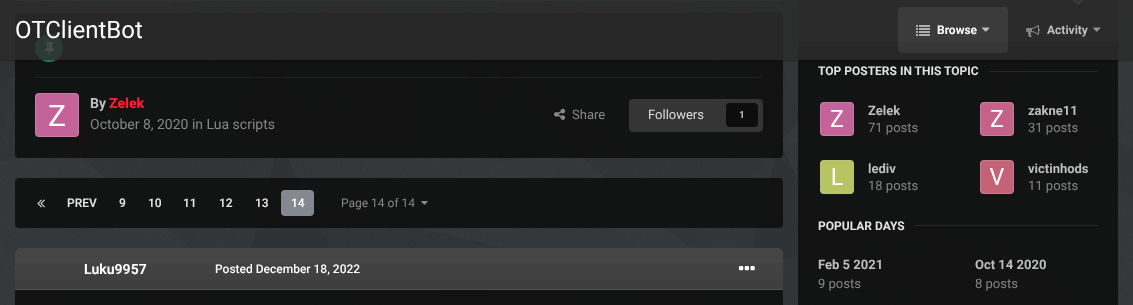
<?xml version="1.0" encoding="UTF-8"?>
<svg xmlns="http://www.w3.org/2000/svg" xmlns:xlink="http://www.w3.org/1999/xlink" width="1133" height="305">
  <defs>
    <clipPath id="clip1"><rect x="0" y="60" width="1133" height="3" /></clipPath>
    <linearGradient id="g1" gradientUnits="userSpaceOnUse" x1="399" y1="248" x2="399" y2="289"><stop offset="0" stop-color="#000000" stop-opacity="0" /><stop offset="1" stop-color="#000000" stop-opacity="0.1" /></linearGradient>
  </defs>
  <rect width="100%" height="100%" fill="#2f3337" />
  <image x="0" y="0" width="1133" height="305" xlink:href="image1.png" />
  <rect x="15" y="13" width="768" height="145" rx="4" fill="#0d0d0d" fill-opacity="0.85" />
  <circle cx="49" cy="48" r="14" fill="#2c8c69" />
  <rect x="798" y="42" width="320" height="263" fill="#0d0d0d" fill-opacity="0.85" />
  <rect y="60" width="1133" height="1" fill="#000000" fill-opacity="0.1" />
  <rect x="15" y="-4" width="768" height="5" rx="4" fill="#2981bf" />
  <rect x="15.5" y="-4.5" width="767" height="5" rx="3.5" fill="none" stroke="#000000" stroke-opacity="0.1" />
  <image x="45" y="42" width="9" height="13" xlink:href="image6.png" />
  <rect x="798" width="320" height="42" fill="#2d2d2d" />
  <image x="1072" y="0" width="12" height="6" xlink:href="image12.png" />
  <g clip-path="url(#clip1)">
    <rect y="1" width="1133" height="60" fill="#000000" fill-opacity="0.15" filter="blur(2px)" />
  </g>
  <rect width="1133" height="60" fill="#2c2c2c" fill-opacity="0.85" />
  <rect x="898" y="7" width="110" height="46" rx="4" fill="#ffffff" fill-opacity="0.08" />
  <image x="916" y="25" width="14" height="11" xlink:href="image2.png" />
  <image x="982" y="27" width="8" height="5" xlink:href="image3.png" />
  <image x="1026" y="25" width="14" height="12" xlink:href="image4.png" />
  <image x="1093" y="27" width="8" height="5" xlink:href="image5.png" />
  <rect x="35" y="77" width="728" height="1" fill="#202122" />
  <image x="35" y="93" width="44" height="44" xlink:href="image7.png" />
  <rect x="35.5" y="93.5" width="43" height="43" rx="3.5" fill="none" stroke="#bfbfbf" stroke-opacity="0.3" />
  <image x="554" y="108" width="12" height="12" xlink:href="image8.png" />
  <rect x="629" y="99" width="134" height="33" rx="4" fill="#353535" />
  <rect x="726" y="103" width="32" height="24" rx="4" fill="#0d0d0d" />
  <rect x="15" y="178" width="768" height="50" rx="4" fill="#0d0d0d" fill-opacity="0.85" />
  <image x="37" y="199" width="8" height="9" xlink:href="image9.png" />
  <rect x="281" y="190" width="33" height="26" rx="4" fill="#858890" />
  <image x="421" y="201" width="7" height="4" xlink:href="image10.png" />
  <rect x="15" y="248" width="768" height="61" rx="4" fill="#0d0d0d" fill-opacity="0.85" />
  <path d="M 19 248 h 760 c 2 0 4 2 4 4 v 38 h -768 v -38 c 0 -2 2 -4 4 -4 z" fill="#575757" fill-opacity="0.75" />
  <rect x="15" y="263" width="768" height="26" fill="url(#g1)" />
  <rect x="15" y="289" width="768" height="1" fill="#525252" />
  <image x="739" y="266" width="16" height="5" xlink:href="image11.png" />
  <rect x="989" y="71" width="109" height="1" fill="#272829" />
  <image x="820" y="102" width="34" height="34" xlink:href="image13.png" />
  <rect x="820.5" y="102.5" width="33" height="33" rx="3.5" fill="none" stroke="#bfbfbf" stroke-opacity="0.3" />
  <image x="980" y="102" width="34" height="34" xlink:href="image14.png" />
  <rect x="980.5" y="102.5" width="33" height="33" rx="3.5" fill="none" stroke="#bfbfbf" stroke-opacity="0.3" />
  <image x="820" y="160" width="34" height="34" xlink:href="image15.png" />
  <rect x="820.5" y="160.5" width="33" height="33" rx="3.5" fill="none" stroke="#bfbfbf" stroke-opacity="0.3" />
  <image x="980" y="160" width="34" height="34" xlink:href="image16.png" />
  <rect x="980.5" y="160.5" width="33" height="33" rx="3.5" fill="none" stroke="#bfbfbf" stroke-opacity="0.3" />
  <rect x="915" y="225" width="183" height="1" fill="#282829" />
  <text x="15" y="38" style="font-family: Roboto; font-size: 24px; fill: #ffffff">OTClientBot</text>
  <text x="937" y="34" style="font-family: Roboto; font-size: 12px; font-weight: bold; fill: #ffffff">Browse</text>
  <text x="1047" y="34" style="font-family: Roboto; font-size: 12px; font-weight: bold; fill: #bfbfbf">Activity</text>
  <text x="90" y="108" style="font-family: Roboto; font-size: 14px; font-weight: bold; fill: #bfbfbf">By</text>
  <text x="109" y="108" style="font-family: Roboto; font-size: 14px; font-weight: 900; fill: #ff1b30">Zelek</text>
  <text x="90" y="129" style="font-family: Roboto; font-size: 14px; fill: #878787">October 8, 2020 in Lua scripts</text>
  <text x="572" y="119" style="font-family: Roboto; font-size: 13px; fill: #878787">Share</text>
  <text x="648" y="119" style="font-family: Roboto; font-size: 13px; fill: #dddddd">Followers</text>
  <text x="739" y="118" style="font-family: Roboto; font-size: 10px; font-weight: bold; fill: #bfbfbf">1</text>
  <text x="67" y="207" style="font-family: Roboto; font-size: 12px; font-weight: 600; fill: #e3e3e3">PREV</text>
  <text x="119" y="207" style="font-family: Roboto; font-size: 12px; font-weight: 600; fill: #e3e3e3">9</text>
  <text x="148" y="207" style="font-family: Roboto; font-size: 12px; font-weight: 600; fill: #e3e3e3">10</text>
  <text x="183" y="207" style="font-family: Roboto; font-size: 12px; font-weight: 600; fill: #e3e3e3">11</text>
  <text x="219" y="207" style="font-family: Roboto; font-size: 12px; font-weight: 600; fill: #e3e3e3">12</text>
  <text x="255" y="207" style="font-family: Roboto; font-size: 12px; font-weight: 600; fill: #e3e3e3">13</text>
  <text x="291" y="207" style="font-family: Roboto; font-size: 12px; font-weight: 600; fill: #ffffff">14</text>
  <text x="341" y="207" style="font-family: Roboto; font-size: 12px; fill: #878787">Page 14 of 14</text>
  <text x="84" y="274" style="font-family: Roboto; font-size: 14px; font-weight: bold; fill: #ffffff">Luku9957</text>
  <text x="215" y="273" style="font-family: Roboto; font-size: 12px; font-weight: 500; fill: #ffffff">Posted December 18, 2022</text>
  <text x="818" y="75" style="font-family: Roboto; font-size: 12px; font-weight: bold; fill: #e3e3e3">TOP POSTERS IN THIS TOPIC</text>
  <text x="868" y="115" style="font-family: Roboto; font-size: 13px; font-weight: bold; fill: #bfbfbf">Zelek</text>
  <text x="868" y="132" style="font-family: Roboto; font-size: 13px; fill: #878787">71 posts</text>
  <text x="1028" y="115" style="font-family: Roboto; font-size: 13px; font-weight: bold; fill: #bfbfbf">zakne11</text>
  <text x="1028" y="132" style="font-family: Roboto; font-size: 13px; fill: #878787">31 posts</text>
  <text x="868" y="173" style="font-family: Roboto; font-size: 13px; font-weight: bold; fill: #bfbfbf">lediv</text>
  <text x="868" y="190" style="font-family: Roboto; font-size: 13px; fill: #878787">18 posts</text>
  <text x="1028" y="173" style="font-family: Roboto; font-size: 13px; font-weight: bold; fill: #bfbfbf">victinhods</text>
  <text x="1028" y="190" style="font-family: Roboto; font-size: 13px; fill: #878787">11 posts</text>
  <text x="818" y="230" style="font-family: Roboto; font-size: 12px; font-weight: bold; fill: #e3e3e3">POPULAR DAYS</text>
  <text x="818" y="269" style="font-family: Roboto; font-size: 13px; font-weight: bold; fill: #bfbfbf">Feb 5 2021</text>
  <text x="818" y="288" style="font-family: Roboto; font-size: 13px; fill: #878787">9 posts</text>
  <text x="975" y="269" style="font-family: Roboto; font-size: 13px; font-weight: bold; fill: #bfbfbf">Oct 14 2020</text>
  <text x="975" y="288" style="font-family: Roboto; font-size: 13px; fill: #878787">8 posts</text>
</svg>
